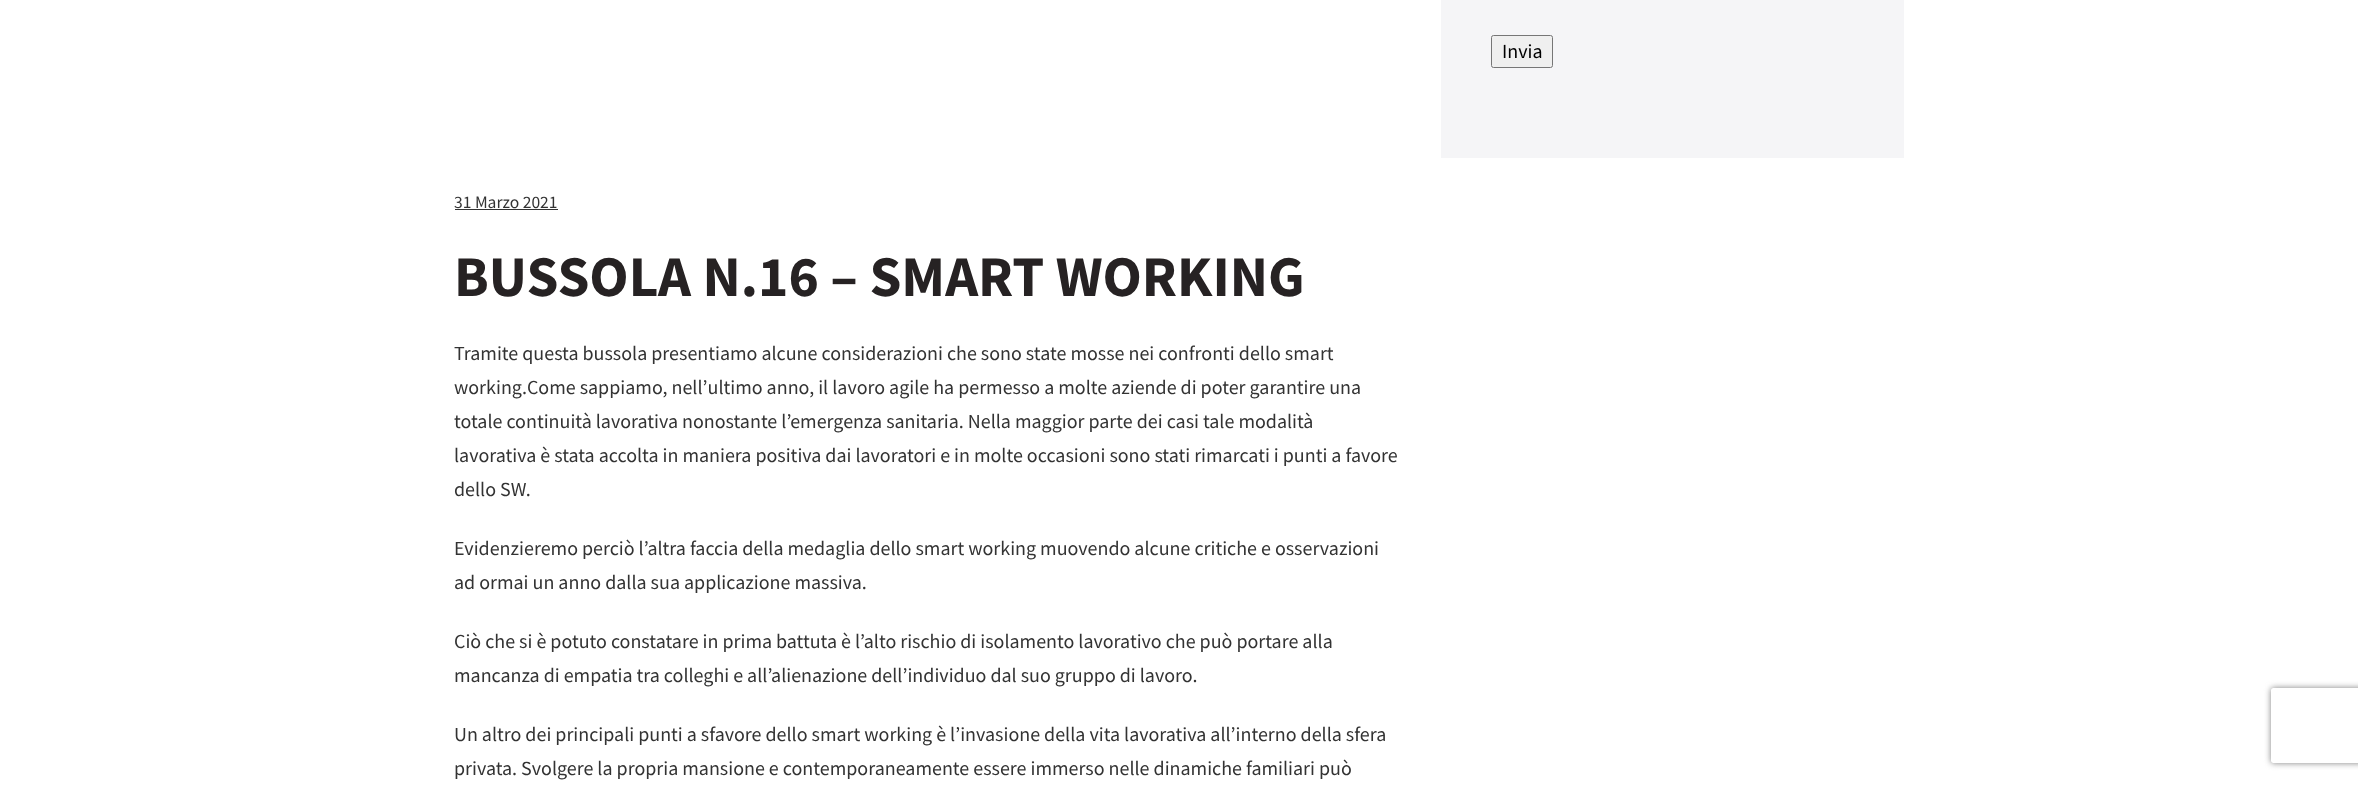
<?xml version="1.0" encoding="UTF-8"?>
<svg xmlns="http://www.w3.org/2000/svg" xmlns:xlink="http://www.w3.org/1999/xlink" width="2358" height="792">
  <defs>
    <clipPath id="clip1"><path d="M 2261 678 h 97 v 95 h -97 z m 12.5 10 h 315 c 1.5 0 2.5 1 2.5 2.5 v 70 c 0 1.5 -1 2.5 -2.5 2.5 h -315 c -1.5 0 -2.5 -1 -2.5 -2.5 v -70 c 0 -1.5 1 -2.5 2.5 -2.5 z" clip-rule="evenodd" /></clipPath>
  </defs>
  <rect width="100%" height="100%" fill="#ffffff" />
  <rect x="1441" width="463" height="158" fill="#f5f5f7" />
  <rect x="1491.5" y="35.5" width="61" height="32" rx="2" fill="#efefef" stroke="#767676" />
  <g clip-path="url(#clip1)">
    <rect x="2271" y="688" width="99" height="75" rx="2.5" fill="#808080" filter="blur(3px)" />
  </g>
  <rect x="455" y="209" width="103" height="1" fill="#333333" />
  <text x="1502" y="58" style="font-family: Source Sans Pro; font-size: 20px; fill: #000000">Invia</text>
  <text x="454" y="208" style="font-family: Source Sans Pro; font-size: 17.5px; fill: #333333">31 Marzo 2021</text>
  <text x="454" y="296" style="font-family: Source Sans Pro; font-size: 57.5px; font-weight: bold; fill: #262223">BUSSOLA N.16 – SMART WORKING</text>
  <text x="454" y="360" style="font-family: Source Sans Pro; font-size: 20px; fill: #333333">Tramite questa bussola presentiamo alcune considerazioni che sono state mosse nei confronti dello smart</text>
  <text x="454" y="394" style="font-family: Source Sans Pro; font-size: 20px; fill: #333333">working.Come sappiamo, nell’ultimo anno, il lavoro agile ha permesso a molte aziende di poter garantire una</text>
  <text x="454" y="428" style="font-family: Source Sans Pro; font-size: 20px; fill: #333333">totale continuità lavorativa nonostante l’emergenza sanitaria. Nella maggior parte dei casi tale modalità</text>
  <text x="454" y="462" style="font-family: Source Sans Pro; font-size: 20px; fill: #333333">lavorativa è stata accolta in maniera positiva dai lavoratori e in molte occasioni sono stati rimarcati i punti a favore</text>
  <text x="454" y="496" style="font-family: Source Sans Pro; font-size: 20px; fill: #333333">dello SW.</text>
  <text x="454" y="555" style="font-family: Source Sans Pro; font-size: 20px; fill: #333333">Evidenzieremo perciò l’altra faccia della medaglia dello smart working muovendo alcune critiche e osservazioni</text>
  <text x="454" y="589" style="font-family: Source Sans Pro; font-size: 20px; fill: #333333">ad ormai un anno dalla sua applicazione massiva.</text>
  <text x="454" y="648" style="font-family: Source Sans Pro; font-size: 20px; fill: #333333">Ciò che si è potuto constatare in prima battuta è l’alto rischio di isolamento lavorativo che può portare alla</text>
  <text x="454" y="682" style="font-family: Source Sans Pro; font-size: 20px; fill: #333333">mancanza di empatia tra colleghi e all’alienazione dell’individuo dal suo gruppo di lavoro.</text>
  <text x="454" y="741" style="font-family: Source Sans Pro; font-size: 20px; fill: #333333">Un altro dei principali punti a sfavore dello smart working è l’invasione della vita lavorativa all’interno della sfera</text>
  <text x="454" y="775" style="font-family: Source Sans Pro; font-size: 20px; fill: #333333">privata. Svolgere la propria mansione e contemporaneamente essere immerso nelle dinamiche familiari può</text>
</svg>
